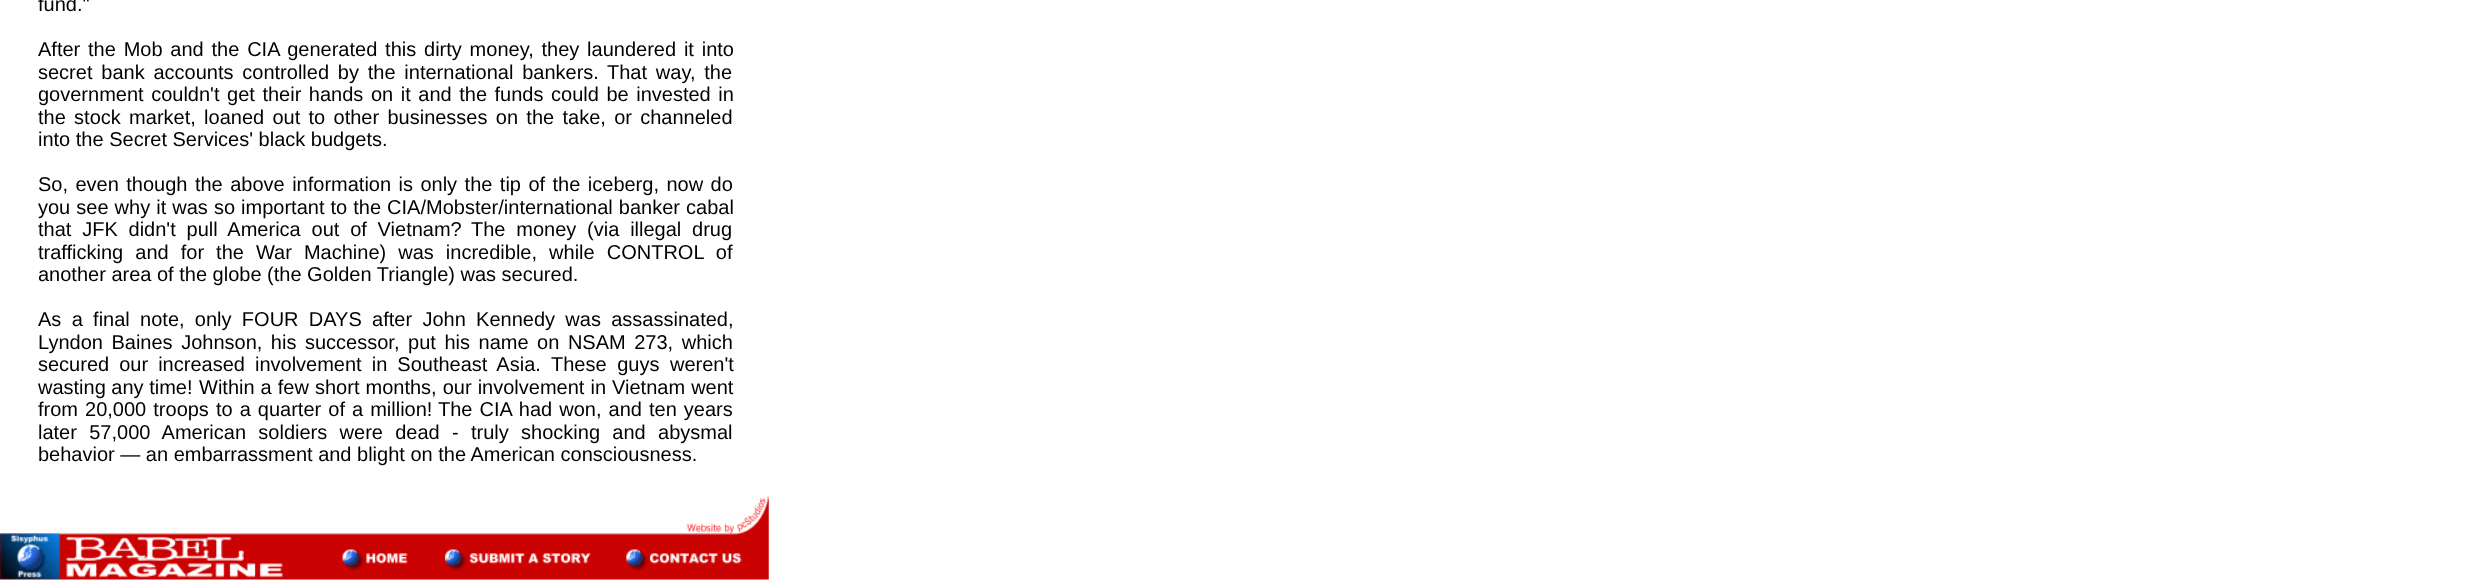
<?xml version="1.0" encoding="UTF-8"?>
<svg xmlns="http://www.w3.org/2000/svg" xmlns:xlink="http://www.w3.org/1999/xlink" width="2482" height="580">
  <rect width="100%" height="100%" fill="#ffffff" />
  <image x="0" y="495" width="769" height="85" xlink:href="image1.png" />
  <text x="38" y="11" style="font-family: Liberation Sans; font-size: 20px; fill: #000000">fund."</text>
  <text x="38" y="56" word-spacing="2.25" style="font-family: Liberation Sans; font-size: 20px; fill: #000000">After the Mob and the CIA generated this dirty money, they laundered it into</text>
  <text x="38" y="79" word-spacing="3.25" style="font-family: Liberation Sans; font-size: 20px; fill: #000000">secret bank accounts controlled by the international bankers.</text>
  <text x="607" y="79" word-spacing="3.25" style="font-family: Liberation Sans; font-size: 20px; fill: #000000">That way, the</text>
  <text x="38" y="101" word-spacing="2" style="font-family: Liberation Sans; font-size: 20px; fill: #000000">government couldn't get their hands on it and the funds could be invested in</text>
  <text x="38" y="124" word-spacing="2.75" style="font-family: Liberation Sans; font-size: 20px; fill: #000000">the stock market, loaned out to other businesses on the take, or channeled</text>
  <text x="38" y="146" style="font-family: Liberation Sans; font-size: 20px; fill: #000000">into the Secret Services' black budgets.</text>
  <text x="38" y="191" word-spacing="1.9" style="font-family: Liberation Sans; font-size: 20px; fill: #000000">So, even though the above information is only the tip of the iceberg, now do</text>
  <text x="38" y="214" word-spacing="0.5" style="font-family: Liberation Sans; font-size: 20px; fill: #000000">you see why it was so important to the CIA/Mobster/international banker cabal</text>
  <text x="38" y="236" word-spacing="5.25" style="font-family: Liberation Sans; font-size: 20px; fill: #000000">that JFK didn't pull America out of Vietnam?</text>
  <text x="471" y="236" word-spacing="5.25" style="font-family: Liberation Sans; font-size: 20px; fill: #000000">The money (via illegal drug</text>
  <text x="38" y="259" word-spacing="6.5" style="font-family: Liberation Sans; font-size: 20px; fill: #000000">trafficking and for the War Machine) was incredible, while CONTROL of</text>
  <text x="38" y="281" style="font-family: Liberation Sans; font-size: 20px; fill: #000000">another area of the globe (the Golden Triangle) was secured.</text>
  <text x="38" y="326" word-spacing="4.75" style="font-family: Liberation Sans; font-size: 20px; fill: #000000">As a final note, only FOUR DAYS after John Kennedy was assassinated,</text>
  <text x="38" y="349" word-spacing="3" style="font-family: Liberation Sans; font-size: 20px; fill: #000000">Lyndon Baines Johnson, his successor, put his name on NSAM 273, which</text>
  <text x="38" y="371" word-spacing="4.5" style="font-family: Liberation Sans; font-size: 20px; fill: #000000">secured our increased involvement in Southeast Asia.</text>
  <text x="551" y="371" word-spacing="5" style="font-family: Liberation Sans; font-size: 20px; fill: #000000">These guys weren't</text>
  <text x="38" y="394" style="font-family: Liberation Sans; font-size: 20px; fill: #000000">wasting any time!</text>
  <text x="199" y="394" word-spacing="0.5" style="font-family: Liberation Sans; font-size: 20px; fill: #000000">Within a few short months, our involvement in Vietnam went</text>
  <text x="38" y="416" word-spacing="1.5" style="font-family: Liberation Sans; font-size: 20px; fill: #000000">from 20,000 troops to a quarter of a million!</text>
  <text x="438" y="416" word-spacing="1.5" style="font-family: Liberation Sans; font-size: 20px; fill: #000000">The CIA had won, and ten years</text>
  <text x="38" y="439" word-spacing="6.75" style="font-family: Liberation Sans; font-size: 20px; fill: #000000">later 57,000 American soldiers were dead - truly shocking and abysmal</text>
  <text x="38" y="461" style="font-family: Liberation Sans; font-size: 20px; fill: #000000">behavior — an embarrassment and blight on the American consciousness.</text>
</svg>
